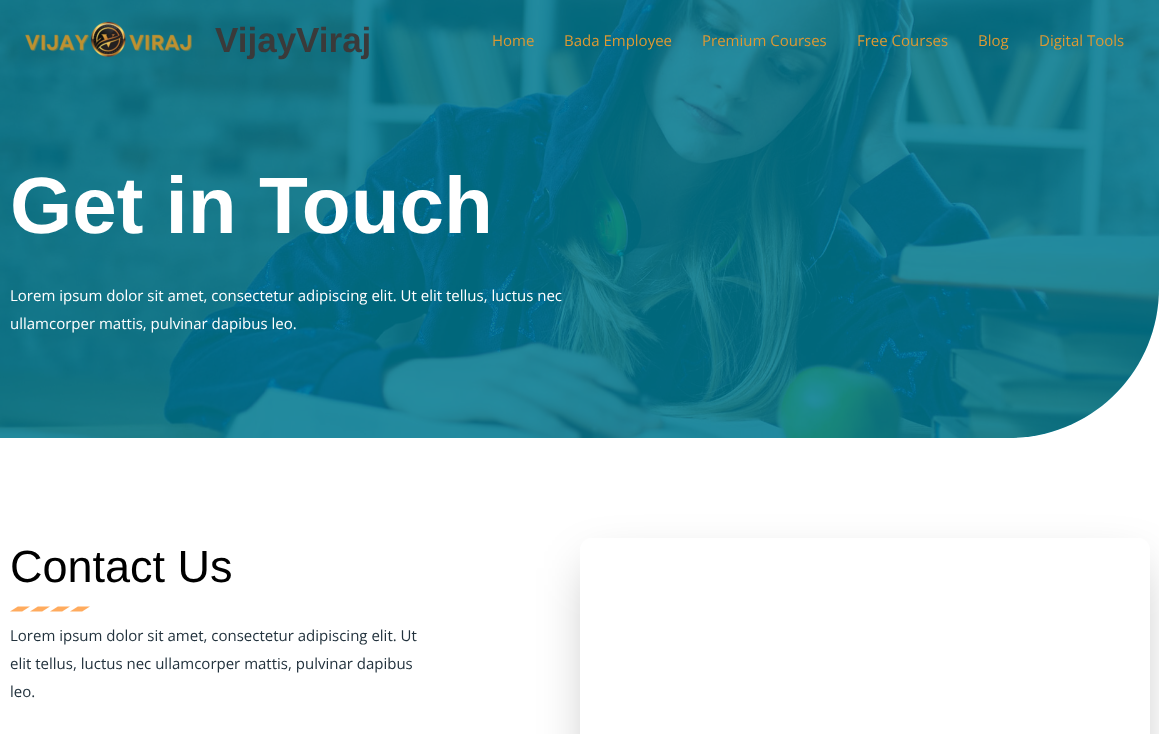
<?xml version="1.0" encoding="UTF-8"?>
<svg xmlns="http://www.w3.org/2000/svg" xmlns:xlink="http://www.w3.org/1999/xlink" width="1159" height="734">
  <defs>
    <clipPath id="clip1"><path d="M 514 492 h 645 v 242 h -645 z m 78 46 h 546 c 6.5 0 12 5.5 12 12 v 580 c 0 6.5 -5.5 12 -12 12 h -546 c -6.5 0 -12 -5.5 -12 -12 v -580 c 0 -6.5 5.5 -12 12 -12 z" clip-rule="evenodd" /></clipPath>
  </defs>
  <rect width="100%" height="100%" fill="#ffffff" />
  <path d="M 0 0 h 1159 v 288 c 0 83 -67 150 -150 150 h -1009 z" fill="#007991" />
  <image x="0" y="0" width="1159" height="438" xlink:href="image2.png" />
  <image x="25" y="21" width="167" height="36" xlink:href="image1.png" />
  <image x="10" y="606" width="80" height="6" xlink:href="image3.png" />
  <g clip-path="url(#clip1)">
    <rect x="590" y="568" width="550" height="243" rx="2" fill="#000000" fill-opacity="0.25" filter="blur(25px)" />
  </g>
  <text x="215" y="52" style="font-family: Liberation Sans; font-size: 35px; font-weight: bold; fill: #3a3a3a">VijayViraj</text>
  <text x="492" y="46" style="font-family: Open Sans; font-size: 15px; fill: #dd9933">Home</text>
  <text x="564" y="46" style="font-family: Open Sans; font-size: 15px; fill: #dd9933">Bada Employee</text>
  <text x="702" y="46" style="font-family: Open Sans; font-size: 15px; fill: #dd9933">Premium Courses</text>
  <text x="857" y="46" style="font-family: Open Sans; font-size: 15px; fill: #dd9933">Free Courses</text>
  <text x="978" y="46" style="font-family: Open Sans; font-size: 15px; fill: #dd9933">Blog</text>
  <text x="1039" y="46" style="font-family: Open Sans; font-size: 15px; fill: #dd9933">Digital Tools</text>
  <text x="10" y="233" style="font-family: Liberation Sans; font-size: 80px; font-weight: bold; fill: #ffffff">Get in Touch</text>
  <text x="10" y="301" style="font-family: Open Sans; font-size: 15px; fill: #ffffff">Lorem ipsum dolor sit amet, consectetur adipiscing elit. Ut elit tellus, luctus nec</text>
  <text x="10" y="329" style="font-family: Open Sans; font-size: 15px; fill: #ffffff">ullamcorper mattis, pulvinar dapibus leo.</text>
  <text x="10" y="582" style="font-family: Liberation Sans; font-size: 45px; fill: #000000">Contact Us</text>
  <text x="10" y="641" style="font-family: Open Sans; font-size: 15px; fill: #22323d">Lorem ipsum dolor sit amet, consectetur adipiscing elit. Ut</text>
  <text x="10" y="669" style="font-family: Open Sans; font-size: 15px; fill: #22323d">elit tellus, luctus nec ullamcorper mattis, pulvinar dapibus</text>
  <text x="10" y="697" style="font-family: Open Sans; font-size: 15px; fill: #22323d">leo.</text>
</svg>
